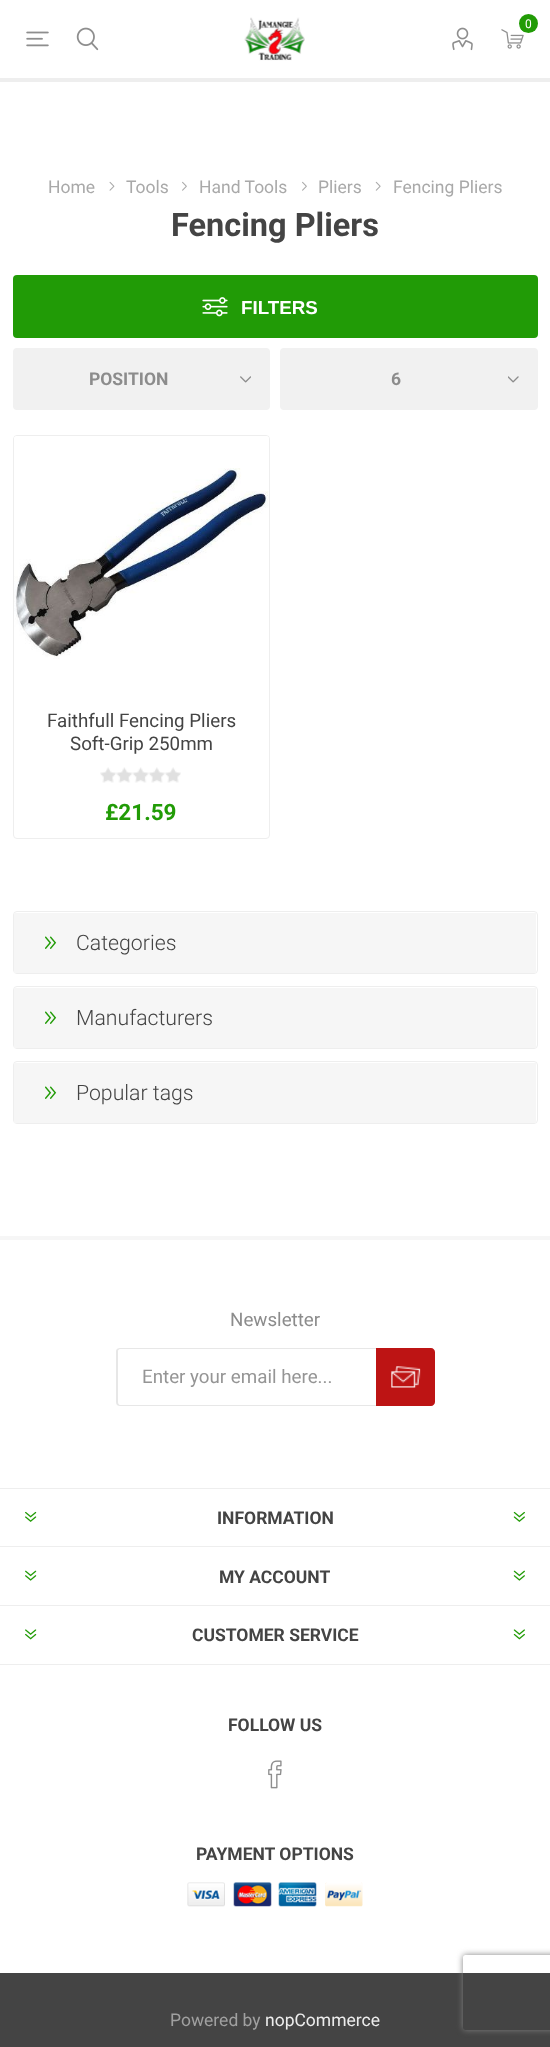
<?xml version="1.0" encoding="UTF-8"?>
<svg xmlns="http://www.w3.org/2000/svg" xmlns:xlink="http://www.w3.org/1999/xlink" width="550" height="2047">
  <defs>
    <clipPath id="clip1"><path d="M 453 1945 h 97 v 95 h -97 z m 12.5 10 h 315 c 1.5 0 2.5 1 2.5 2.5 v 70 c 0 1.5 -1 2.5 -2.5 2.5 h -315 c -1.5 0 -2.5 -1 -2.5 -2.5 v -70 c 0 -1.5 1 -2.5 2.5 -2.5 z" clip-rule="evenodd" /></clipPath>
  </defs>
  <rect width="100%" height="100%" fill="#ffffff" />
  <rect y="78" width="550" height="4" fill="#eeeeee" />
  <image x="244" y="17" width="61" height="44" xlink:href="image1.png" />
  <image x="501" y="29" width="23" height="20" xlink:href="image2.png" />
  <circle cx="528.5" cy="23.5" r="9.5" fill="#219b06" />
  <image x="26" y="31" width="23" height="16" xlink:href="image3.png" />
  <image x="76" y="27" width="23" height="24" xlink:href="image4.png" />
  <image x="452" y="27" width="21" height="24" xlink:href="image5.png" />
  <image x="109" y="181" width="6" height="10" xlink:href="image6.png" />
  <image x="182" y="181" width="5" height="10" xlink:href="image7.png" />
  <image x="302" y="181" width="5" height="10" xlink:href="image7.png" />
  <image x="375" y="181" width="6" height="10" xlink:href="image8.png" />
  <rect x="13" y="275" width="525" height="63" rx="4" fill="#219b06" />
  <image x="202" y="297" width="26" height="20" xlink:href="image9.png" />
  <rect x="13" y="348" width="257" height="62" rx="4" fill="#f1f1f1" />
  <image x="240" y="376" width="11" height="7" xlink:href="image10.png" />
  <rect x="280" y="348" width="258" height="62" rx="4" fill="#f1f1f1" />
  <image x="508" y="376" width="11" height="7" xlink:href="image11.png" />
  <rect x="13.5" y="435.5" width="256" height="403" rx="3.5" fill="none" stroke="#eeeeee" />
  <path d="M 16.5 436 h 250 c 1.5 0 2.5 1 2.5 2.5 v 252.5 h -255 v -252.5 c 0 -1.5 1 -2.5 2.5 -2.5 z" fill="#ffffff" />
  <image x="14" y="468" width="255" height="191" xlink:href="image12.png" />
  <image x="100" y="767" width="81" height="16" xlink:href="image13.png" />
  <rect x="13.5" y="911.5" width="524" height="62" rx="3.5" fill="none" stroke="#eeeeee" />
  <rect x="14" y="913" width="522" height="60" fill="#f6f6f6" />
  <image x="45" y="936" width="12" height="13" xlink:href="image14.png" />
  <rect x="13.5" y="986.5" width="524" height="62" rx="3.5" fill="none" stroke="#eeeeee" />
  <rect x="14" y="988" width="522" height="60" fill="#f6f6f6" />
  <image x="45" y="1011" width="12" height="13" xlink:href="image14.png" />
  <rect x="13.5" y="1061.5" width="524" height="62" rx="3.5" fill="none" stroke="#eeeeee" />
  <rect x="14" y="1063" width="522" height="60" fill="#f6f6f6" />
  <image x="45" y="1086" width="12" height="13" xlink:href="image14.png" />
  <rect y="1236" width="550" height="4" fill="#f6f6f6" />
  <path d="M 120 1348 h 256 v 58 h -256 c -2 0 -4 -1 -4 -4 v -51 c 0 -2 2 -3 4 -3 z m 0 1 h 256 v 56 h -256 c -1 0 -2 -1 -2 -3 v -51 c 0 -1 1 -2 2 -2 z" fill="#e7e7e7" fill-rule="evenodd" />
  <path d="M 376 1348 h 55 c 2 0 4 2 4 4 v 50 c 0 2 -2 4 -4 4 h -55 z" fill="#bd1414" />
  <image x="391" y="1366" width="30" height="22" xlink:href="image15.png" />
  <rect y="1488" width="550" height="1" fill="#eeeeee" />
  <rect y="1546" width="550" height="1" fill="#eeeeee" />
  <image x="25" y="1511" width="12" height="11" xlink:href="image16.png" />
  <image x="513" y="1511" width="12" height="11" xlink:href="image17.png" />
  <rect y="1605" width="550" height="1" fill="#eeeeee" />
  <image x="25" y="1570" width="12" height="11" xlink:href="image18.png" />
  <image x="513" y="1570" width="12" height="11" xlink:href="image19.png" />
  <rect y="1664" width="550" height="1" fill="#eeeeee" />
  <image x="25" y="1629" width="12" height="11" xlink:href="image20.png" />
  <image x="513" y="1629" width="12" height="11" xlink:href="image21.png" />
  <image x="268" y="1760" width="14" height="29" xlink:href="image22.png" />
  <image x="187" y="1882" width="38" height="25" xlink:href="image23.png" />
  <image x="233" y="1882" width="39" height="25" xlink:href="image24.png" />
  <image x="278" y="1882" width="39" height="25" xlink:href="image25.png" />
  <image x="325" y="1882" width="38" height="25" xlink:href="image26.png" />
  <rect y="1973" width="550" height="74" fill="#444444" />
  <g clip-path="url(#clip1)">
    <rect x="463" y="1955" width="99" height="75" rx="2.5" fill="#808080" filter="blur(3px)" />
  </g>
  <text x="525" y="28" style="font-family: Roboto; font-size: 12px; fill: #ffffff">0</text>
  <text x="48" y="193" style="font-family: Roboto; font-size: 17.5px; fill: #a9a9a9">Home</text>
  <text x="126" y="193" style="font-family: Roboto; font-size: 17.5px; fill: #a9a9a9">Tools</text>
  <text x="199" y="193" style="font-family: Roboto; font-size: 17.5px; fill: #a9a9a9">Hand Tools</text>
  <text x="318" y="193" style="font-family: Roboto; font-size: 17.5px; fill: #a9a9a9">Pliers</text>
  <text x="393" y="193" style="font-family: Roboto; font-size: 17.5px; fill: #a9a9a9">Fencing Pliers</text>
  <text x="171" y="236" style="font-family: Roboto; font-size: 32.5px; font-weight: bold; fill: #444444">Fencing Pliers</text>
  <text x="241" y="314" style="font-family: Liberation Sans; font-size: 18.75px; font-weight: bold; fill: #ffffff">FILTERS</text>
  <text x="89" y="385" style="font-family: Roboto; font-size: 17.5px; font-weight: bold; fill: #8c8c8c">POSITION</text>
  <text x="391" y="385" style="font-family: Roboto; font-size: 17.5px; font-weight: bold; fill: #8c8c8c">6</text>
  <text x="47" y="727" style="font-family: Roboto; font-size: 18.75px; fill: #444444">Faithfull Fencing Pliers</text>
  <text x="70" y="750" style="font-family: Roboto; font-size: 18.75px; fill: #444444">Soft-Grip 250mm</text>
  <text x="105" y="820" style="font-family: Roboto; font-size: 22.5px; font-weight: bold; fill: #219b06">£21.59</text>
  <text x="76" y="950" style="font-family: Roboto; font-size: 21.25px; font-weight: 300; fill: #444444">Categories</text>
  <text x="76" y="1025" style="font-family: Roboto; font-size: 21.25px; font-weight: 300; fill: #444444">Manufacturers</text>
  <text x="76" y="1100" style="font-family: Roboto; font-size: 21.25px; font-weight: 300; fill: #444444">Popular tags</text>
  <text x="230" y="1326" style="font-family: Roboto; font-size: 18.75px; fill: #8c8c8c">Newsletter</text>
  <text x="142" y="1383" style="font-family: Roboto; font-size: 18.75px; fill: #959595">Enter your email here...</text>
  <text x="217" y="1524" style="font-family: Roboto; font-size: 17.5px; font-weight: bold; fill: #444444">INFORMATION</text>
  <text x="219" y="1583" style="font-family: Roboto; font-size: 17.5px; font-weight: bold; fill: #444444">MY ACCOUNT</text>
  <text x="192" y="1641" style="font-family: Roboto; font-size: 17.5px; font-weight: bold; fill: #444444">CUSTOMER SERVICE</text>
  <text x="228" y="1731" style="font-family: Roboto; font-size: 17.5px; font-weight: bold; fill: #444444">FOLLOW US</text>
  <text x="196" y="1860" style="font-family: Roboto; font-size: 17.5px; font-weight: bold; fill: #444444">PAYMENT OPTIONS</text>
  <text x="170" y="2026" style="font-family: Roboto; font-size: 17.5px; fill: #a0a0a0">Powered by</text>
  <text x="265" y="2026" style="font-family: Roboto; font-size: 17.5px; fill: #ededed">nopCommerce</text>
</svg>
